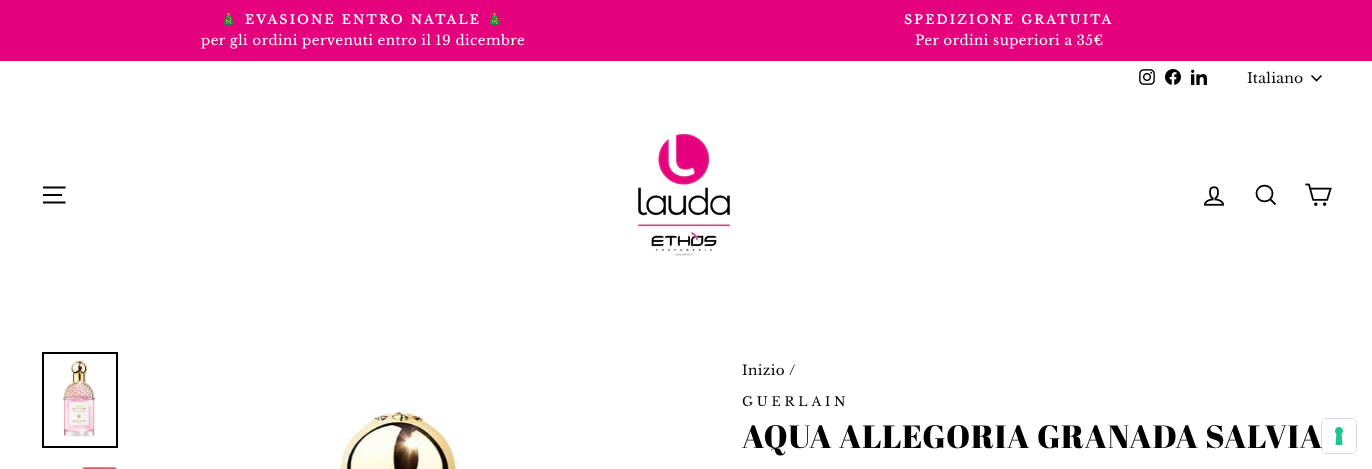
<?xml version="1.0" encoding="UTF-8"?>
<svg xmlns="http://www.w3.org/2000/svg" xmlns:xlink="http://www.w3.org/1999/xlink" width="1372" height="469">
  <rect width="100%" height="100%" fill="#ffffff" />
  <rect width="1372" height="61" fill="#e5007e" />
  <image x="1139" y="69" width="16" height="16" xlink:href="image1.png" />
  <image x="1165" y="69" width="16" height="16" xlink:href="image2.png" />
  <image x="1191" y="69" width="16" height="16" xlink:href="image3.png" />
  <path d="M 1311.5 75.5 l 5 5 l 5 -5" fill="none" stroke="#000000" stroke-width="1.6" />
  <path d="M 43 187.5 h 22.5 m -22.5 7.5 h 19 m -19 7.5 h 22.5" fill="none" stroke="#000000" stroke-width="1.8" />
  <image x="636" y="132" width="96" height="124" xlink:href="image4.png" />
  <image x="1203" y="186" width="22" height="20" xlink:href="image5.png" />
  <path d="M 1272.5 193.5 c 0 10.5 -16 10.5 -16 0 c 0 -10.5 16 -10.5 16 0 z m 3 11 l -5 -5" fill="none" stroke="#000000" stroke-width="1.8" />
  <image x="1305" y="183" width="27" height="23" xlink:href="image6.png" />
  <image x="44" y="354" width="72" height="92" xlink:href="image7.png" />
  <rect x="43" y="353" width="74" height="94" fill="none" stroke="#000000" stroke-width="2" />
  <image x="42" y="467" width="76" height="2" xlink:href="image8.png" />
  <image x="135" y="350" width="540" height="119" xlink:href="image9.png" />
  <text x="221" y="24" style="font-family: Noto Color Emoji; font-size: 12.25px; font-weight: bold; letter-spacing: 2.45px; fill: #ffffff">🎄</text>
  <text x="245" y="24" style="font-family: Libre Baskerville; font-size: 12.25px; font-weight: bold; letter-spacing: 2.45px; fill: #ffffff">EVASIONE ENTRO NATALE</text>
  <text x="487" y="24" style="font-family: Noto Color Emoji; font-size: 12.25px; font-weight: bold; letter-spacing: 2.45px; fill: #ffffff">🎄</text>
  <text x="201" y="45" style="font-family: Libre Baskerville; font-size: 13.6px; letter-spacing: 0.4px; fill: #ffffff">per gli ordini pervenuti entro il 19 dicembre</text>
  <text x="904" y="24" style="font-family: Libre Baskerville; font-size: 12.25px; font-weight: bold; letter-spacing: 2.45px; fill: #ffffff">SPEDIZIONE GRATUITA</text>
  <text x="915" y="45" style="font-family: Libre Baskerville; font-size: 13.6px; letter-spacing: 0.4px; fill: #ffffff">Per ordini superiori a 35€</text>
  <text x="1247" y="83" style="font-family: Libre Baskerville; font-size: 14px; letter-spacing: 0.25px; fill: #000000">Italiano</text>
  <text x="742" y="375" style="font-family: Libre Baskerville; font-size: 13.6px; letter-spacing: 0.4px; fill: #000000">Inizio</text>
  <text x="789" y="375" style="font-family: Libre Baskerville; font-size: 13.6px; letter-spacing: 0.4px; fill: #000000">/</text>
  <text x="742" y="406" style="font-family: Libre Baskerville; font-size: 12.75px; letter-spacing: 3.75px; fill: #000000">GUERLAIN</text>
  <text x="742" y="448" style="font-family: Abril Fatface; font-size: 32.25px; letter-spacing: 0.8px; fill: #000000">AQUA ALLEGORIA GRANADA SALVIA</text>
  <rect x="1321.5" y="418.5" width="35" height="35" rx="4.5" fill="none" stroke="#000000" stroke-opacity="0.15" />
  <rect x="1322" y="419" width="34" height="34" rx="4" fill="#ffffff" />
  <image x="1335" y="427" width="8" height="18" xlink:href="image10.png" />
</svg>
